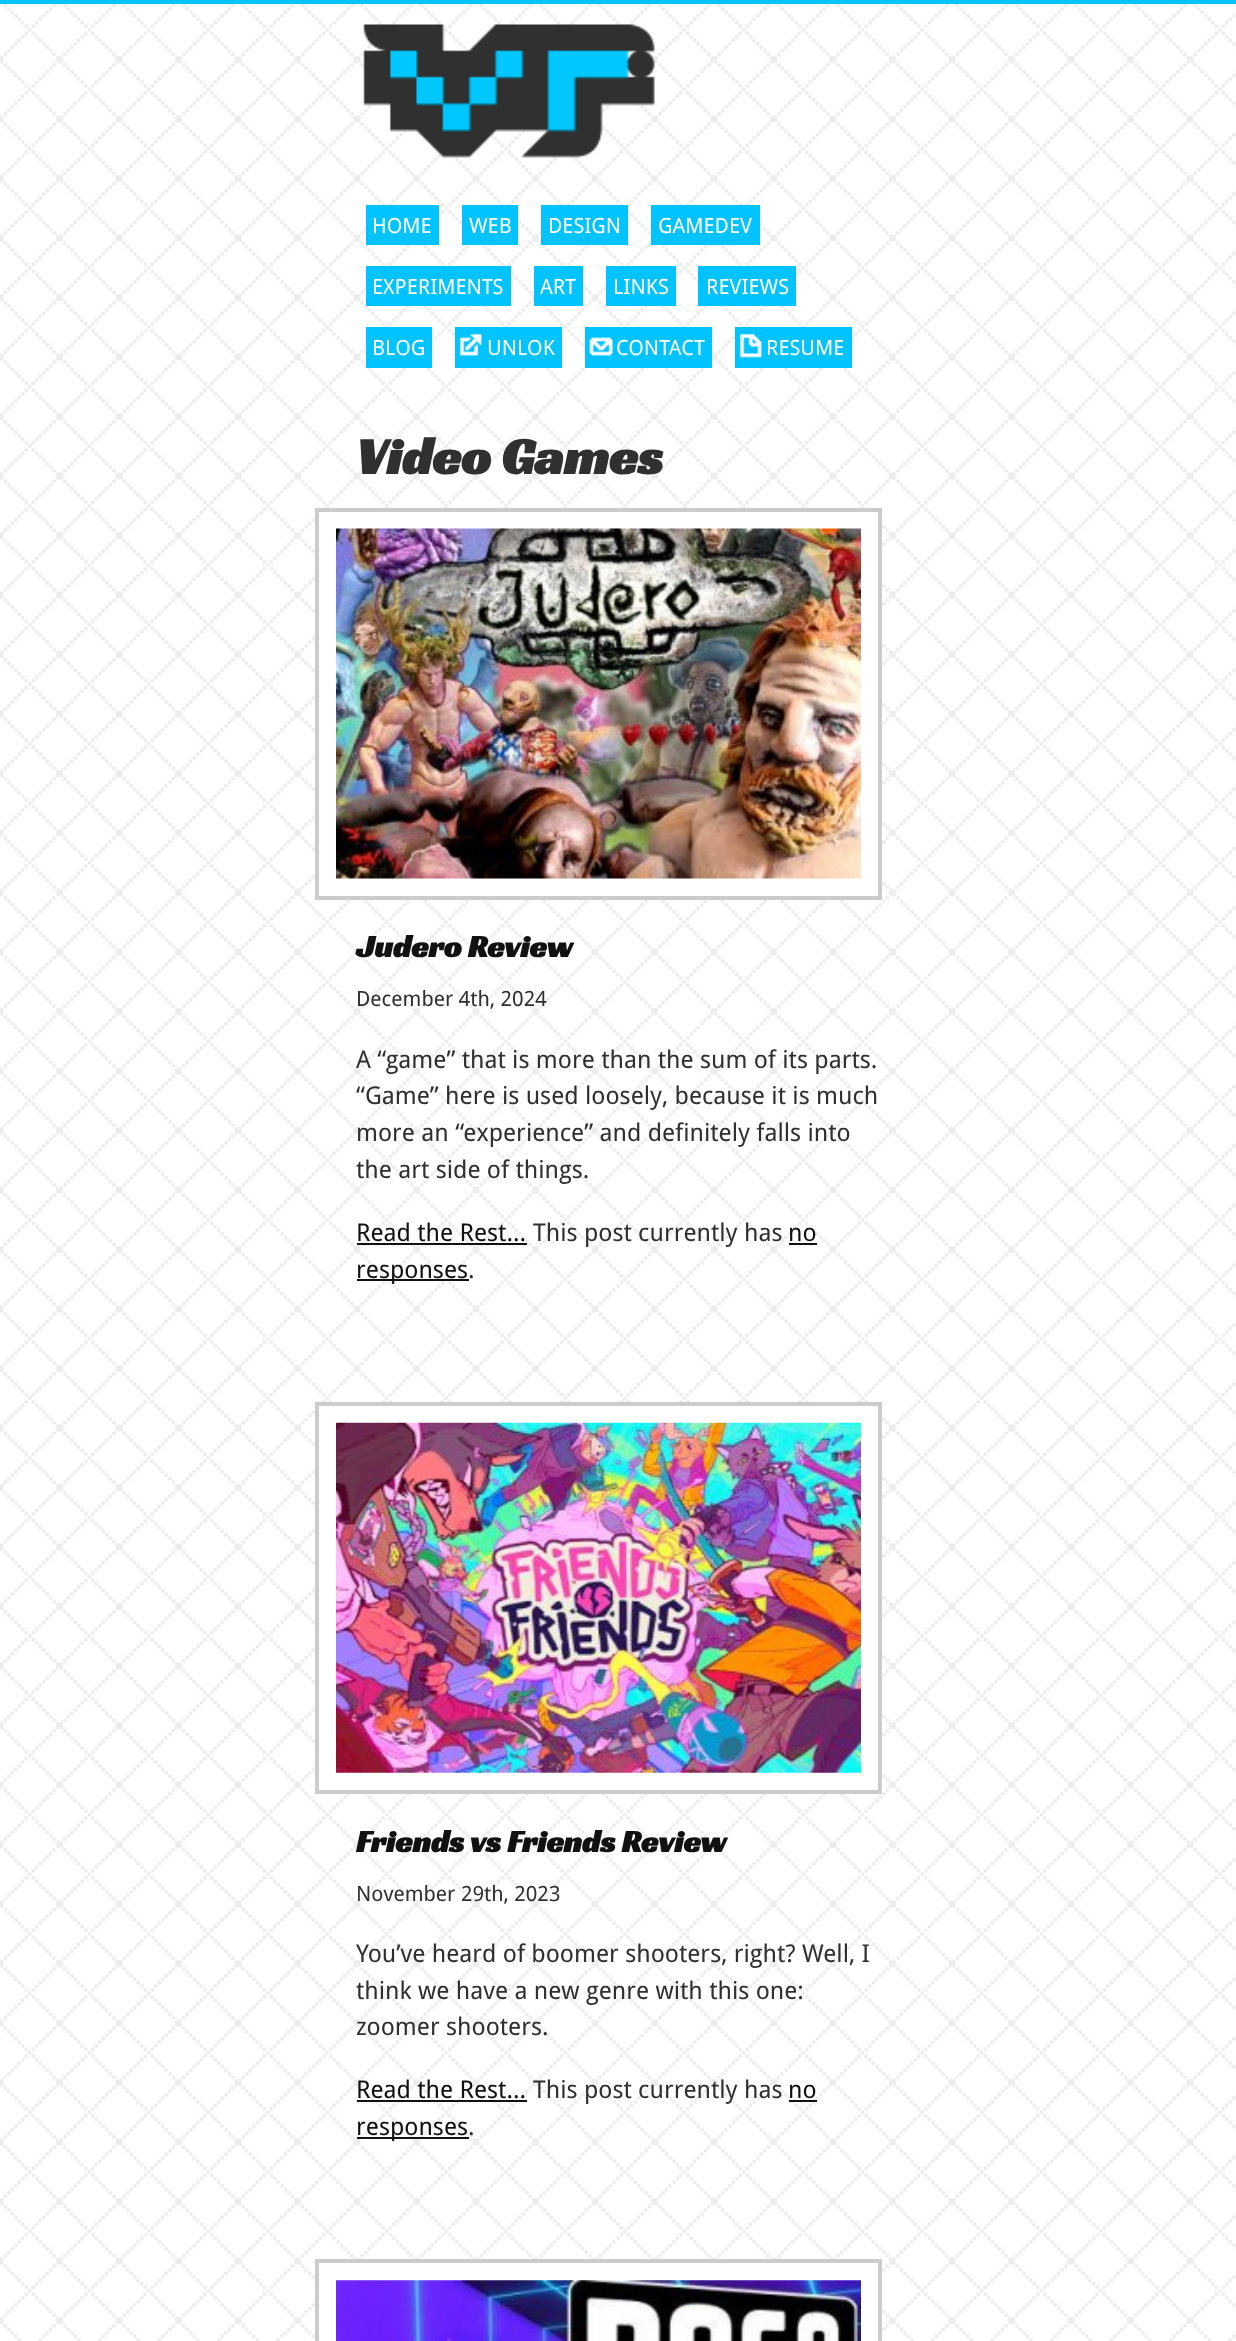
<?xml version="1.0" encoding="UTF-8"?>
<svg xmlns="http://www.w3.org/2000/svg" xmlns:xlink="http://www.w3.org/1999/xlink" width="1236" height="2341">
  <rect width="100%" height="100%" fill="#ffffff" />
  <image x="0" y="4" width="1236" height="2337" xlink:href="image1.png" />
  <rect width="1236" height="4" fill="#00c3ff" />
  <image x="363" y="24" width="292" height="134" xlink:href="image2.png" />
  <rect x="366" y="205" width="73" height="40" fill="#00c3ff" />
  <rect x="462" y="205" width="56" height="40" fill="#00c3ff" />
  <rect x="541" y="205" width="87" height="40" fill="#00c3ff" />
  <rect x="651" y="205" width="109" height="40" fill="#00c3ff" />
  <rect x="366" y="266" width="145" height="40" fill="#00c3ff" />
  <rect x="534" y="266" width="49" height="40" fill="#00c3ff" />
  <rect x="606" y="266" width="70" height="40" fill="#00c3ff" />
  <rect x="698" y="266" width="98" height="40" fill="#00c3ff" />
  <rect x="366" y="327" width="66" height="41" fill="#00c3ff" />
  <rect x="455" y="327" width="107" height="41" fill="#00c3ff" />
  <image x="459" y="333" width="23" height="23" xlink:href="image3.png" />
  <rect x="585" y="327" width="127" height="41" fill="#00c3ff" />
  <image x="589" y="337" width="24" height="19" xlink:href="image4.png" />
  <rect x="735" y="327" width="117" height="41" fill="#00c3ff" />
  <image x="739" y="333" width="23" height="25" xlink:href="image5.png" />
  <rect x="317" y="510" width="563" height="388" fill="#ffffff" stroke="#cccccc" stroke-width="4" />
  <image x="336" y="528" width="525" height="351" xlink:href="image6.png" />
  <rect x="357" y="1243" width="170" height="2" fill="#111111" />
  <rect x="789" y="1243" width="28" height="2" fill="#111111" />
  <rect x="357" y="1279" width="112" height="2" fill="#111111" />
  <rect x="317" y="1404" width="563" height="388" fill="#ffffff" stroke="#cccccc" stroke-width="4" />
  <image x="336" y="1422" width="525" height="351" xlink:href="image7.png" />
  <rect x="357" y="2100" width="170" height="2" fill="#111111" />
  <rect x="789" y="2100" width="28" height="2" fill="#111111" />
  <rect x="357" y="2137" width="112" height="2" fill="#111111" />
  <rect x="317" y="2261" width="563" height="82" fill="#ffffff" stroke="#cccccc" stroke-width="4" />
  <image x="336" y="2280" width="525" height="61" xlink:href="image8.png" />
  <text x="372" y="233" style="font-family: Droid Sans; font-size: 21px; fill: #ffffff">HOME</text>
  <text x="469" y="233" style="font-family: Droid Sans; font-size: 21px; fill: #ffffff">WEB</text>
  <text x="548" y="233" style="font-family: Droid Sans; font-size: 21px; fill: #ffffff">DESIGN</text>
  <text x="658" y="233" style="font-family: Droid Sans; font-size: 21px; fill: #ffffff">GAMEDEV</text>
  <text x="372" y="294" style="font-family: Droid Sans; font-size: 21px; fill: #ffffff">EXPERIMENTS</text>
  <text x="540" y="294" style="font-family: Droid Sans; font-size: 21px; fill: #ffffff">ART</text>
  <text x="613" y="294" style="font-family: Droid Sans; font-size: 21px; fill: #ffffff">LINKS</text>
  <text x="706" y="294" style="font-family: Droid Sans; font-size: 21px; fill: #ffffff">REVIEWS</text>
  <text x="372" y="355" style="font-family: Droid Sans; font-size: 21px; fill: #ffffff">BLOG</text>
  <text x="487" y="355" style="font-family: Droid Sans; font-size: 21px; fill: #ffffff">UNLOK</text>
  <text x="616" y="355" style="font-family: Droid Sans; font-size: 21px; fill: #ffffff">CONTACT</text>
  <text x="766" y="355" style="font-family: Droid Sans; font-size: 21px; fill: #ffffff">RESUME</text>
  <text x="356" y="474" style="font-family: Racing Sans One; font-size: 52.5px; font-weight: bold; fill: #303030">Video Games</text>
  <text x="356" y="957" style="font-family: Racing Sans One; font-size: 31.5px; font-weight: bold; fill: #111111">Judero Review</text>
  <text x="356" y="1006" style="font-family: Droid Sans; font-size: 21px; fill: #303030">December 4th, 2024</text>
  <text x="356" y="1068" style="font-family: Droid Sans; font-size: 24.5px; fill: #303030">A “game” that is more than the sum of its parts.</text>
  <text x="356" y="1104" style="font-family: Droid Sans; font-size: 24.5px; fill: #303030">“Game” here is used loosely, because it is much</text>
  <text x="356" y="1141" style="font-family: Droid Sans; font-size: 24.5px; fill: #303030">more an “experience” and definitely falls into</text>
  <text x="356" y="1178" style="font-family: Droid Sans; font-size: 24.5px; fill: #303030">the art side of things.</text>
  <text x="356" y="1241" style="font-family: Droid Sans; font-size: 24.5px; fill: #111111">Read the Rest...</text>
  <text x="533" y="1241" style="font-family: Droid Sans; font-size: 24.5px; fill: #303030">This post currently has</text>
  <text x="788" y="1241" style="font-family: Droid Sans; font-size: 24.5px; fill: #111111">no</text>
  <text x="356" y="1278" style="font-family: Droid Sans; font-size: 24.5px; fill: #111111">responses</text>
  <text x="468" y="1278" style="font-family: Droid Sans; font-size: 24.5px; fill: #303030">.</text>
  <text x="356" y="1852" style="font-family: Racing Sans One; font-size: 31.5px; font-weight: bold; fill: #111111">Friends vs Friends Review</text>
  <text x="356" y="1901" style="font-family: Droid Sans; font-size: 21px; fill: #303030">November 29th, 2023</text>
  <text x="356" y="1962" style="font-family: Droid Sans; font-size: 24.5px; fill: #303030">You’ve heard of boomer shooters, right? Well, I</text>
  <text x="356" y="1999" style="font-family: Droid Sans; font-size: 24.5px; fill: #303030">think we have a new genre with this one:</text>
  <text x="356" y="2035" style="font-family: Droid Sans; font-size: 24.5px; fill: #303030">zoomer shooters.</text>
  <text x="356" y="2098" style="font-family: Droid Sans; font-size: 24.5px; fill: #111111">Read the Rest...</text>
  <text x="533" y="2098" style="font-family: Droid Sans; font-size: 24.5px; fill: #303030">This post currently has</text>
  <text x="788" y="2098" style="font-family: Droid Sans; font-size: 24.5px; fill: #111111">no</text>
  <text x="356" y="2135" style="font-family: Droid Sans; font-size: 24.5px; fill: #111111">responses</text>
  <text x="468" y="2135" style="font-family: Droid Sans; font-size: 24.5px; fill: #303030">.</text>
</svg>
